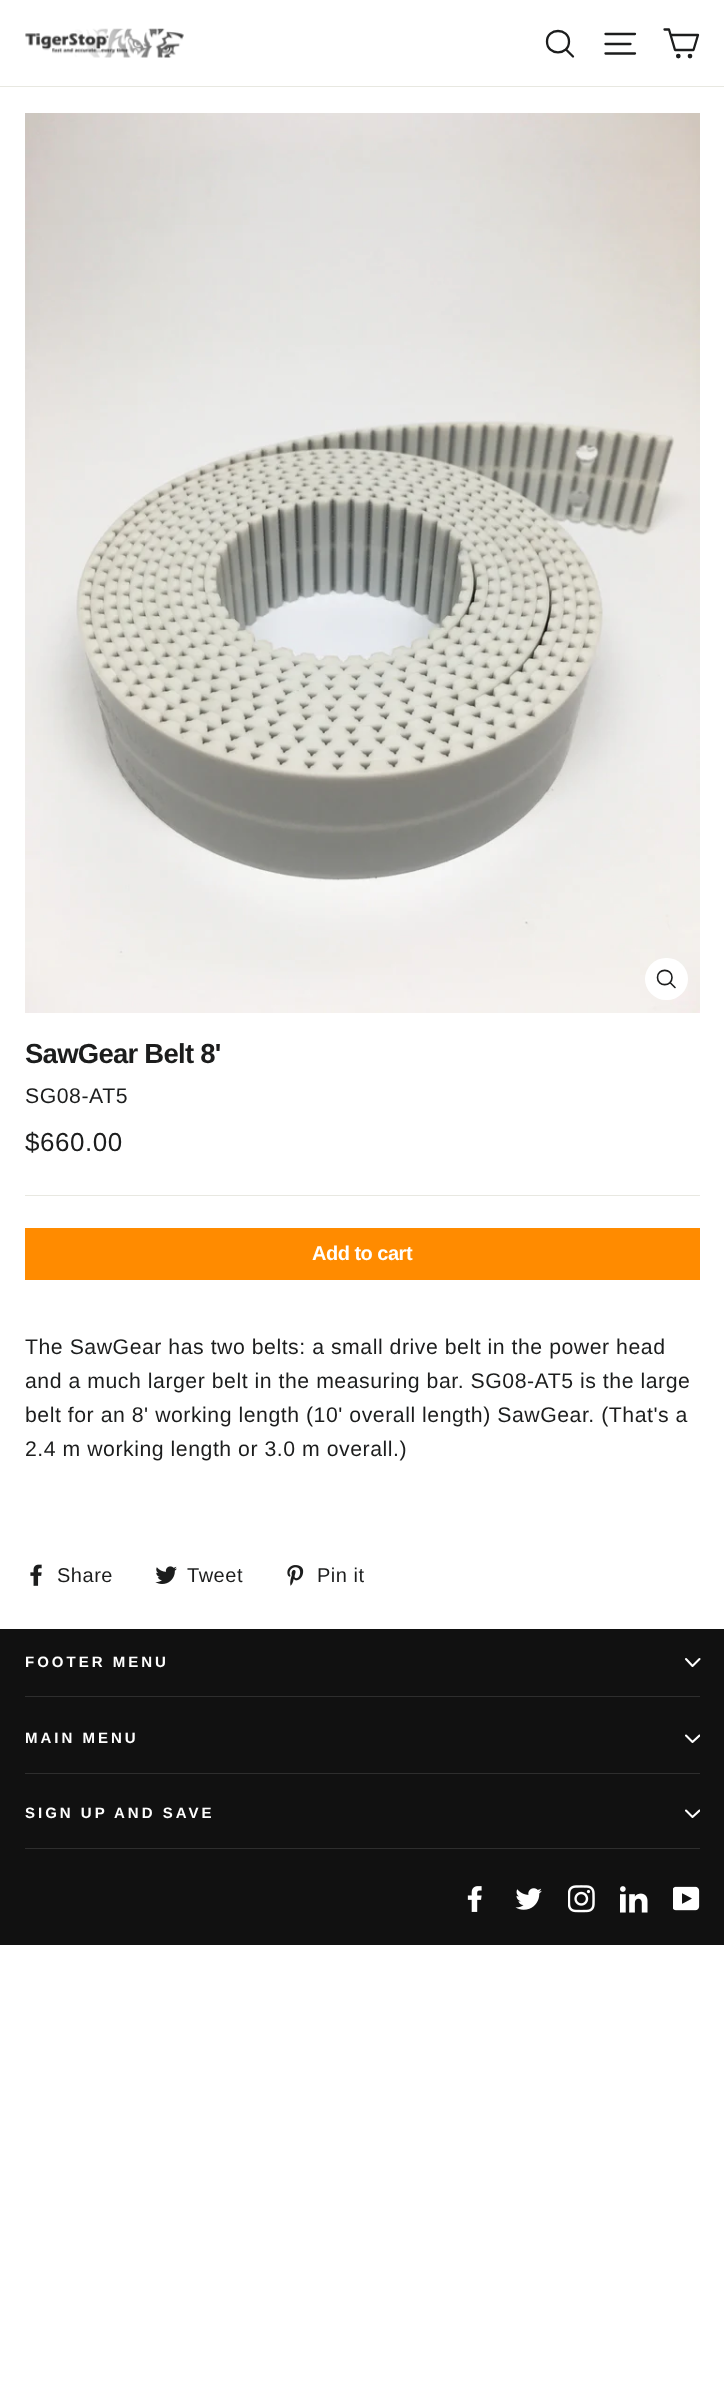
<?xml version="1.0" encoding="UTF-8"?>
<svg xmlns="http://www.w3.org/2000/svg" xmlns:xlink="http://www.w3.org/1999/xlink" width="724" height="2383">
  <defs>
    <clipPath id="clip1"><rect x="685" y="1731" width="15" height="15" /></clipPath>
    <clipPath id="clip2"><rect x="685" y="1806" width="15" height="15" /></clipPath>
  </defs>
  <rect width="100%" height="100%" fill="#ffffff" />
  <rect y="86" width="724" height="1" fill="#e8e8e1" />
  <image x="25" y="28" width="159" height="30" xlink:href="image1.png" />
  <path d="M 569 41.5 c 0 14.5 -22 14.5 -22 0 c 0 -14 22 -14 22 0 z m 4 15 l -7 -7" fill="none" stroke="#1c1d1d" stroke-width="2.3" stroke-linecap="round" stroke-linejoin="round" />
  <path d="M 605.5 34 h 29.5 m -29.5 10 h 25 m -25 9.5 h 29.5" fill="none" stroke="#1c1d1d" stroke-width="2.3" stroke-linecap="round" stroke-linejoin="round" />
  <path d="M 670.5 35 h 27.5 l -4.5 15 h -18.5 l -6 -20.5 h -4.5" fill="none" stroke="#1c1d1d" stroke-width="2.3" stroke-linecap="round" stroke-linejoin="round" />
  <circle cx="678.3" cy="56.1" r="1.2" fill="none" stroke="#1c1d1d" stroke-width="2.3" />
  <circle cx="690" cy="56.1" r="1.2" fill="none" stroke="#1c1d1d" stroke-width="2.3" />
  <image x="25" y="113" width="675" height="900" xlink:href="image2.png" />
  <rect x="645" y="958" width="43" height="42" rx="21" fill="#ffffff" />
  <path d="M 672 977.5 c 0 9.5 -14.5 9.5 -14.5 0 c 0 -9.5 14.5 -9.5 14.5 0 z m 3 10 l -5 -5" fill="none" stroke="#1c1d1d" stroke-width="1.6" stroke-linecap="round" stroke-linejoin="round" />
  <rect x="25" y="1195" width="675" height="1" fill="#e8e8e1" />
  <rect x="25" y="1228" width="675" height="52" fill="#ff8b00" />
  <image x="30" y="1564" width="12" height="22" xlink:href="image3.png" />
  <image x="155" y="1566" width="22" height="18" xlink:href="image4.png" />
  <image x="287" y="1565" width="17" height="21" xlink:href="image5.png" />
  <rect y="1629" width="724" height="316" fill="#111111" />
  <path d="M 686 1659 l 6.5 7 l 7 -7" fill="none" stroke="#ffffff" stroke-width="2.1" stroke-linecap="round" stroke-linejoin="round" />
  <rect x="25" y="1696" width="675" height="1" fill="#2e2e2e" />
  <g clip-path="url(#clip1)">
    <path d="M 686 1735.5 l 6.5 6.5 l 7 -6.5" fill="none" stroke="#ffffff" stroke-width="2.1" stroke-linecap="round" stroke-linejoin="round" />
  </g>
  <rect x="25" y="1773" width="675" height="1" fill="#2e2e2e" />
  <g clip-path="url(#clip2)">
    <path d="M 686 1810.5 l 6.5 6.5 l 7 -6.5" fill="none" stroke="#ffffff" stroke-width="2.1" stroke-linecap="round" stroke-linejoin="round" />
  </g>
  <rect x="25" y="1848" width="675" height="1" fill="#2e2e2e" />
  <image x="467" y="1886" width="15" height="26" xlink:href="image6.png" />
  <image x="515" y="1888" width="27" height="22" xlink:href="image7.png" />
  <image x="568" y="1885" width="27" height="28" xlink:href="image8.png" />
  <image x="620" y="1886" width="28" height="27" xlink:href="image9.png" />
  <image x="673" y="1886" width="27" height="25" xlink:href="image10.png" />
  <text x="25" y="1063" style="font-family: Liberation Sans; font-size: 27.5px; font-weight: bold; letter-spacing: -0.75px; fill: #1c1d1d">SawGear Belt 8'</text>
  <text x="25" y="1103" style="font-family: Liberation Sans; font-size: 21.25px; letter-spacing: 0.53px; fill: #1c1d1d">SG08-AT5</text>
  <text x="25" y="1151" style="font-family: Liberation Sans; font-size: 26px; letter-spacing: 0.53px; fill: #1c1d1d">$660.00</text>
  <text x="312" y="1260" style="font-family: Liberation Sans; font-size: 20px; font-weight: bold; letter-spacing: -0.5px; fill: #ffffff">Add to cart</text>
  <text x="25" y="1354" style="font-family: Liberation Sans; font-size: 21.25px; letter-spacing: 0.53px; fill: #1c1d1d">The SawGear has two belts: a small drive belt in the power head</text>
  <text x="25" y="1388" style="font-family: Liberation Sans; font-size: 21.25px; letter-spacing: 0.53px; fill: #1c1d1d">and a much larger belt in the measuring bar. SG08-AT5 is the large</text>
  <text x="25" y="1422" style="font-family: Liberation Sans; font-size: 21.25px; letter-spacing: 0.53px; fill: #1c1d1d">belt for an 8' working length (10' overall length) SawGear. (That's a</text>
  <text x="25" y="1456" style="font-family: Liberation Sans; font-size: 21.25px; letter-spacing: 0.53px; fill: #1c1d1d">2.4 m working length or 3.0 m overall.)</text>
  <text x="57" y="1582" style="font-family: Liberation Sans; font-size: 20px; letter-spacing: 0.53px; fill: #1c1d1d">Share</text>
  <text x="187" y="1582" style="font-family: Liberation Sans; font-size: 20px; letter-spacing: 0.53px; fill: #1c1d1d">Tweet</text>
  <text x="317" y="1582" style="font-family: Liberation Sans; font-size: 20px; letter-spacing: 0.53px; fill: #1c1d1d">Pin it</text>
  <text x="25" y="1667" style="font-family: Liberation Sans; font-size: 15px; font-weight: bold; letter-spacing: 3px; fill: #ffffff">FOOTER MENU</text>
  <text x="25" y="1743" style="font-family: Liberation Sans; font-size: 15px; font-weight: bold; letter-spacing: 3px; fill: #ffffff">MAIN MENU</text>
  <text x="25" y="1818" style="font-family: Liberation Sans; font-size: 15px; font-weight: bold; letter-spacing: 3px; fill: #ffffff">SIGN UP AND SAVE</text>
</svg>
